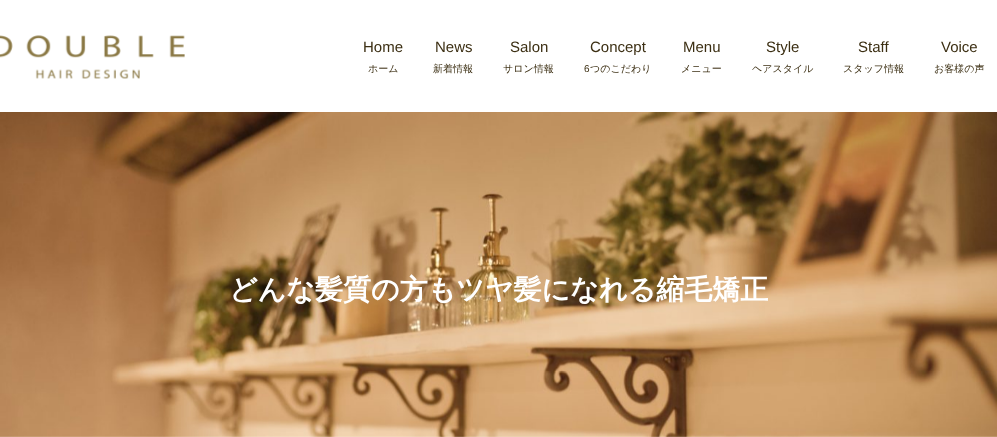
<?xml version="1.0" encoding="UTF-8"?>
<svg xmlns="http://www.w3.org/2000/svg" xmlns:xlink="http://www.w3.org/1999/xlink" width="997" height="437">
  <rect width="100%" height="100%" fill="#ffffff" />
  <image x="0" y="35" width="185" height="44" xlink:href="image1.png" />
  <image x="0" y="112" width="997" height="325" xlink:href="image2.png" />
  <text x="363" y="52" style="font-family: Liberation Sans; font-size: 15px; fill: #3c2f13">Home</text>
  <text x="368" y="72" style="font-family: WenQuanYi Zen Hei; font-size: 10px; font-weight: 500; fill: #3c2f13">ホーム</text>
  <text x="435" y="52" style="font-family: Liberation Sans; font-size: 15px; fill: #3c2f13">News</text>
  <text x="433" y="72" style="font-family: WenQuanYi Zen Hei; font-size: 10px; font-weight: 500; fill: #3c2f13">新着情報</text>
  <text x="510" y="52" style="font-family: Liberation Sans; font-size: 15px; fill: #3c2f13">Salon</text>
  <text x="503" y="72" style="font-family: WenQuanYi Zen Hei; font-size: 10px; font-weight: 500; fill: #3c2f13">サロン情報</text>
  <text x="590" y="52" style="font-family: Liberation Sans; font-size: 15px; fill: #3c2f13">Concept</text>
  <text x="584" y="72" style="font-family: Liberation Sans; font-size: 10px; fill: #3c2f13">6</text>
  <text x="590" y="72" style="font-family: WenQuanYi Zen Hei; font-size: 10px; font-weight: 500; fill: #3c2f13">つのこだわり</text>
  <text x="683" y="52" style="font-family: Liberation Sans; font-size: 15px; fill: #3c2f13">Menu</text>
  <text x="681" y="72" style="font-family: WenQuanYi Zen Hei; font-size: 10px; font-weight: 500; fill: #3c2f13">メニュー</text>
  <text x="766" y="52" style="font-family: Liberation Sans; font-size: 15px; fill: #3c2f13">Style</text>
  <text x="752" y="72" style="font-family: WenQuanYi Zen Hei; font-size: 10px; font-weight: 500; fill: #3c2f13">ヘアスタイル</text>
  <text x="858" y="52" style="font-family: Liberation Sans; font-size: 15px; fill: #3c2f13">Staff</text>
  <text x="843" y="72" style="font-family: WenQuanYi Zen Hei; font-size: 10px; font-weight: 500; fill: #3c2f13">スタッフ情報</text>
  <text x="941" y="52" style="font-family: Liberation Sans; font-size: 15px; fill: #3c2f13">Voice</text>
  <text x="934" y="72" style="font-family: WenQuanYi Zen Hei; font-size: 10px; font-weight: 500; fill: #3c2f13">お客様の声</text>
  <text x="229" y="299" style="font-family: WenQuanYi Zen Hei; font-size: 28px; font-weight: bold; fill: #ffffff">どんな髪質の方もツヤ髪になれる縮毛矯正</text>
</svg>
